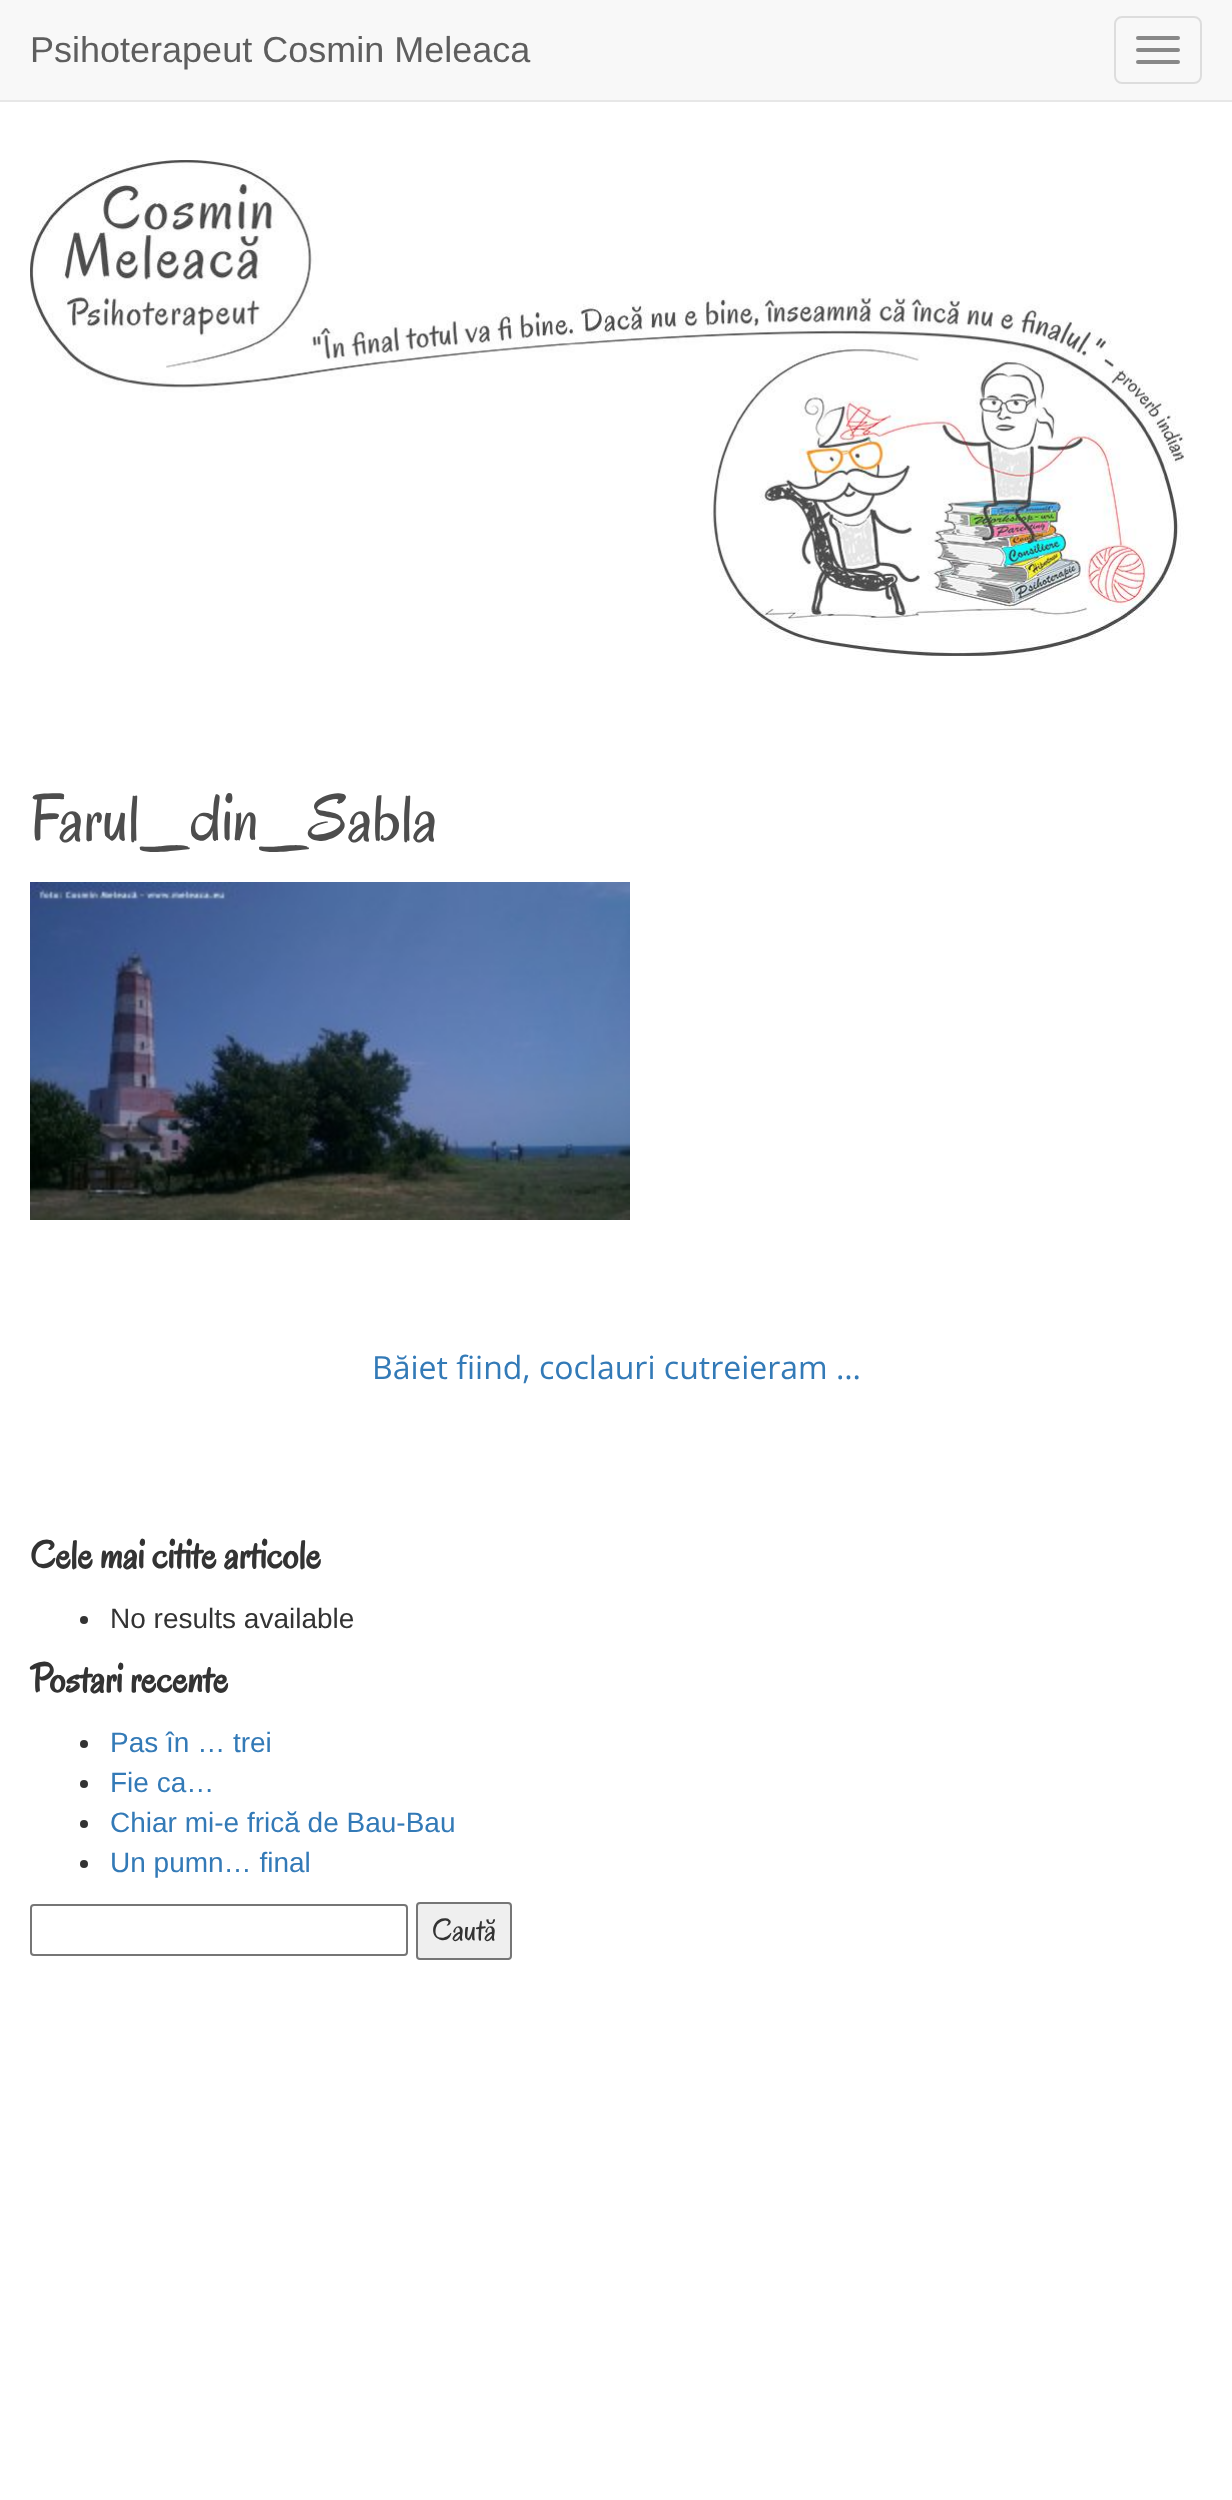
<?xml version="1.0" encoding="UTF-8"?>
<svg xmlns="http://www.w3.org/2000/svg" xmlns:xlink="http://www.w3.org/1999/xlink" width="1232" height="2500">
  <rect width="100%" height="100%" fill="#ffffff" />
  <rect width="1232" height="100" fill="#f8f8f8" />
  <rect y="100" width="1232" height="2" fill="#e7e7e7" />
  <rect x="1115" y="17" width="86" height="66" rx="7" fill="none" stroke="#dddddd" stroke-width="2" />
  <rect x="1136" y="36" width="44" height="4" rx="2" fill="#888888" />
  <rect x="1136" y="48" width="44" height="4" rx="2" fill="#888888" />
  <rect x="1136" y="60" width="44" height="4" rx="2" fill="#888888" />
  <image x="30" y="160" width="1154" height="496" xlink:href="image1.png" />
  <image x="30" y="882" width="600" height="338" xlink:href="image2.png" />
  <circle cx="84" cy="1620" r="4" fill="#333333" />
  <circle cx="84" cy="1744" r="4" fill="#333333" />
  <circle cx="84" cy="1784" r="4" fill="#333333" />
  <circle cx="84" cy="1824" r="4" fill="#333333" />
  <circle cx="84" cy="1864" r="4" fill="#333333" />
  <rect x="31" y="1905" width="376" height="50" rx="3" fill="none" stroke="#767676" stroke-width="2" />
  <rect x="417" y="1903" width="94" height="56" rx="3" fill="#efefef" stroke="#767676" stroke-width="2" />
  <text x="30" y="62" style="font-family: Liberation Sans; font-size: 36px; fill: #5e5e5e">Psihoterapeut Cosmin Meleaca</text>
  <text x="30" y="840" style="font-family: Oregano; font-size: 66.75px; fill: #4d4d4d">Farul_din_Sabla</text>
  <text x="372" y="1379" style="font-family: Open Sans; font-size: 32px; fill: #337ab7">Băiet fiind, coclauri cutreieram …</text>
  <text x="30" y="1568" style="font-family: Oregano; font-size: 40px; font-weight: bold; fill: #333333">Cele mai citite articole</text>
  <text x="110" y="1628" style="font-family: Liberation Sans; font-size: 28px; fill: #333333">No results available</text>
  <text x="30" y="1692" style="font-family: Oregano; font-size: 40px; font-weight: bold; fill: #333333">Postari recente</text>
  <text x="110" y="1752" style="font-family: Liberation Sans; font-size: 28px; fill: #337ab7">Pas în … trei</text>
  <text x="110" y="1792" style="font-family: Liberation Sans; font-size: 28px; fill: #337ab7">Fie ca…</text>
  <text x="110" y="1832" style="font-family: Liberation Sans; font-size: 28px; fill: #337ab7">Chiar mi-e frică de Bau-Bau</text>
  <text x="110" y="1872" style="font-family: Liberation Sans; font-size: 28px; fill: #337ab7">Un pumn… final</text>
  <text x="432" y="1940" style="font-family: Oregano; font-size: 32px; fill: #333333">Caută</text>
</svg>
